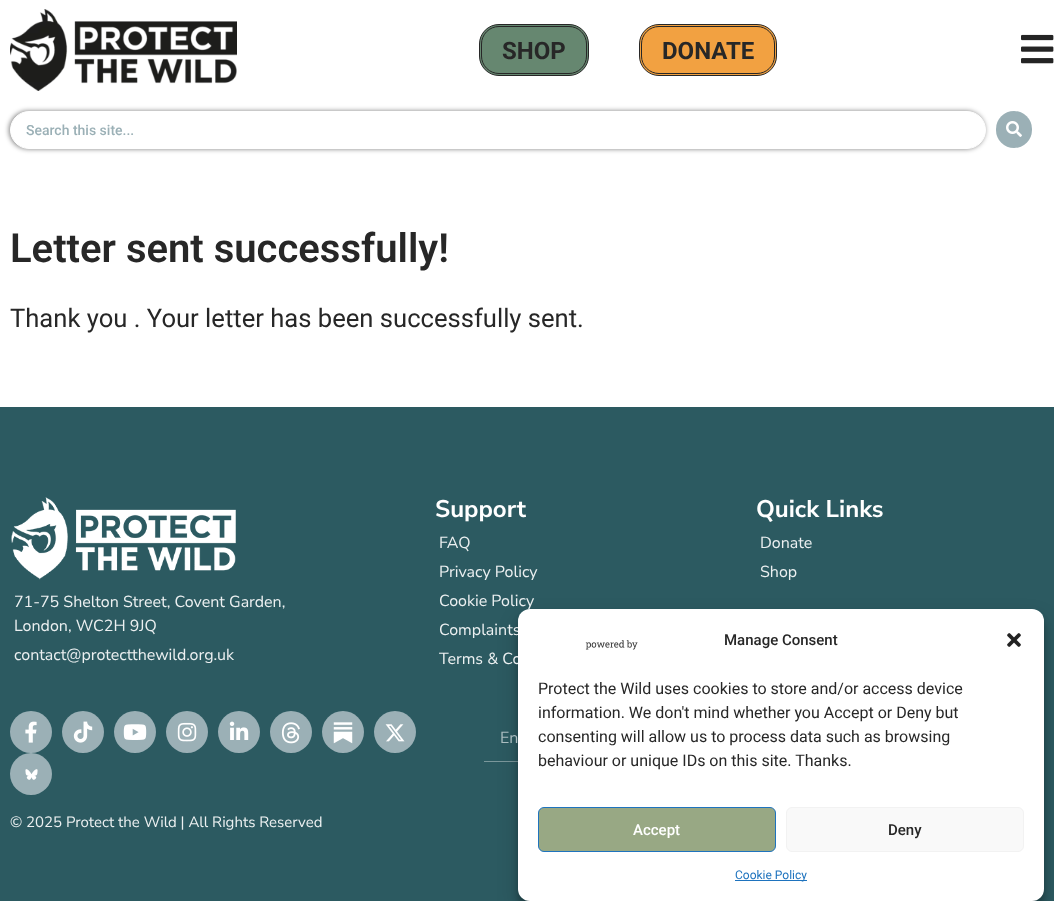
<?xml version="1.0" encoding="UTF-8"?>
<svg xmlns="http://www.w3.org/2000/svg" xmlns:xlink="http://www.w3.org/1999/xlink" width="1054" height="901">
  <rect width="100%" height="100%" fill="#ffffff" />
  <image x="10" y="9" width="227" height="82" xlink:href="image1.png" />
  <rect x="479.5" y="24.5" width="109" height="51" rx="19.5" fill="#668770" stroke="#272727" />
  <rect x="481.5" y="26.5" width="105" height="47" rx="17.5" fill="none" stroke="#272727" />
  <rect x="639.5" y="24.5" width="137" height="51" rx="19.5" fill="#f2a141" stroke="#272727" />
  <rect x="641.5" y="26.5" width="133" height="47" rx="17.5" fill="none" stroke="#272727" />
  <image x="1021" y="34" width="33" height="30" xlink:href="image2.png" />
  <rect x="9" y="111" width="976" height="38" rx="19" fill="#000000" fill-opacity="0.5" filter="blur(2.5px)" />
  <rect x="10.5" y="111.5" width="975" height="37" rx="18.5" fill="#ffffff" stroke="#ffffff" />
  <rect x="996" y="111" width="36" height="37" rx="18" fill="#9bb0b6" />
  <image x="1006" y="121" width="16" height="16" xlink:href="image3.png" />
  <rect y="407" width="1054" height="494" fill="#2c5a61" />
  <image x="11" y="497" width="225" height="83" xlink:href="image4.png" />
  <circle cx="31" cy="732" r="21" fill="#9bb0b6" />
  <image x="25" y="721" width="12" height="22" xlink:href="image5.png" />
  <circle cx="83" cy="732" r="21" fill="#9bb0b6" />
  <image x="73" y="721" width="20" height="22" xlink:href="image6.png" />
  <circle cx="135" cy="732" r="21" fill="#9bb0b6" />
  <image x="123" y="724" width="24" height="16" xlink:href="image7.png" />
  <circle cx="187" cy="732" r="21" fill="#9bb0b6" />
  <image x="177" y="722" width="20" height="20" xlink:href="image8.png" />
  <circle cx="239" cy="732" r="21" fill="#9bb0b6" />
  <image x="229" y="721" width="20" height="19" xlink:href="image9.png" />
  <circle cx="291" cy="732" r="21" fill="#9bb0b6" />
  <image x="281" y="722" width="19" height="22" xlink:href="image10.png" />
  <circle cx="343" cy="732" r="21" fill="#9bb0b6" />
  <image x="333" y="722" width="20" height="22" xlink:href="image11.png" />
  <circle cx="395" cy="732" r="21" fill="#9bb0b6" />
  <image x="385" y="724" width="20" height="18" xlink:href="image12.png" />
  <circle cx="31" cy="774" r="21" fill="#9bb0b6" />
  <image x="25" y="769" width="13" height="11" xlink:href="image13.png" />
  <rect x="484" y="761" width="34" height="1" fill="#7a979b" />
  <rect x="518" y="615" width="526" height="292" rx="12" fill="#000000" fill-opacity="0.23" filter="blur(3px)" />
  <rect x="518" y="619" width="526" height="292" rx="12" fill="#000000" fill-opacity="0.19" filter="blur(10px)" />
  <text x="502" y="59" style="font-family: Roboto; font-size: 24px; font-weight: bold; fill: #272727">SHOP</text>
  <text x="662" y="59" style="font-family: Roboto; font-size: 24px; font-weight: bold; fill: #272727">DONATE</text>
  <text x="26" y="135" style="font-family: Roboto; font-size: 14px; font-weight: 500; fill: #9bb0b6">Search this site...</text>
  <text x="10" y="262" style="font-family: Roboto; font-size: 40px; font-weight: 600; fill: #272727">Letter sent successfully!</text>
  <text x="10" y="327" style="font-family: Roboto; font-size: 25.6px; fill: #272727">Thank you . Your letter has been successfully sent.</text>
  <text x="435" y="517" style="font-family: Nunito Sans; font-size: 24px; font-weight: bold; fill: #ffffff">Support</text>
  <text x="439" y="548" style="font-family: Nunito Sans; font-size: 16px; fill: #ecf0f1">FAQ</text>
  <text x="439" y="577" style="font-family: Nunito Sans; font-size: 16px; fill: #ecf0f1">Privacy Policy</text>
  <text x="439" y="606" style="font-family: Nunito Sans; font-size: 16px; fill: #ecf0f1">Cookie Policy</text>
  <text x="439" y="635" style="font-family: Nunito Sans; font-size: 16px; fill: #ecf0f1">Complaints</text>
  <text x="439" y="664" style="font-family: Nunito Sans; font-size: 16px; fill: #ecf0f1">Terms &amp; Co</text>
  <text x="756" y="517" style="font-family: Nunito Sans; font-size: 24px; font-weight: bold; fill: #ffffff">Quick Links</text>
  <text x="760" y="548" style="font-family: Nunito Sans; font-size: 16px; fill: #ecf0f1">Donate</text>
  <text x="760" y="577" style="font-family: Nunito Sans; font-size: 16px; fill: #ecf0f1">Shop</text>
  <text x="14" y="607" style="font-family: Nunito Sans; font-size: 16px; fill: #ecf0f1">71-75 Shelton Street, Covent Garden,</text>
  <text x="14" y="631" style="font-family: Nunito Sans; font-size: 16px; fill: #ecf0f1">London, WC2H 9JQ</text>
  <text x="14" y="660" style="font-family: Nunito Sans; font-size: 16px; fill: #ecf0f1">contact@protectthewild.org.uk</text>
  <text x="500" y="743" style="font-family: Nunito Sans; font-size: 16px; fill: #abbdc0">En</text>
  <text x="10" y="827" style="font-family: Nunito Sans; font-size: 15px; fill: #ecf0f1">© 2025 Protect the Wild | All Rights Reserved</text>
  <rect x="518" y="609" width="526" height="292" rx="12" fill="#ffffff" />
  <image x="585" y="640" width="53" height="10" xlink:href="image14.png" />
  <text x="724" y="645" style="font-family: Roboto; font-size: 15px; font-weight: 500; fill: #272727">Manage Consent</text>
  <image x="1007" y="633" width="14" height="14" xlink:href="image15.png" />
  <text x="538" y="694" style="font-family: Roboto; font-size: 16px; fill: #272727">Protect the Wild uses cookies to store and/or access device</text>
  <text x="538" y="718" style="font-family: Roboto; font-size: 16px; fill: #272727">information. We don't mind whether you Accept or Deny but</text>
  <text x="538" y="742" style="font-family: Roboto; font-size: 16px; fill: #272727">consenting will allow us to process data such as browsing</text>
  <text x="538" y="766" style="font-family: Roboto; font-size: 16px; fill: #272727">behaviour or unique IDs on this site. Thanks.</text>
  <rect x="538.5" y="807.5" width="237" height="44" rx="5.5" fill="#98a884" stroke="#1e73be" />
  <text x="633" y="835" style="font-family: Roboto; font-size: 15px; font-weight: 500; fill: #ffffff">Accept</text>
  <rect x="786.5" y="807.5" width="237" height="44" rx="5.5" fill="#f9f9f9" stroke="#f2f2f2" />
  <text x="888" y="835" style="font-family: Roboto; font-size: 15px; font-weight: 500; fill: #272727">Deny</text>
  <rect x="735" y="880" width="72" height="1" fill="#1e73be" />
  <text x="735" y="879" style="font-family: Roboto; font-size: 12px; fill: #1e73be">Cookie Policy</text>
</svg>
